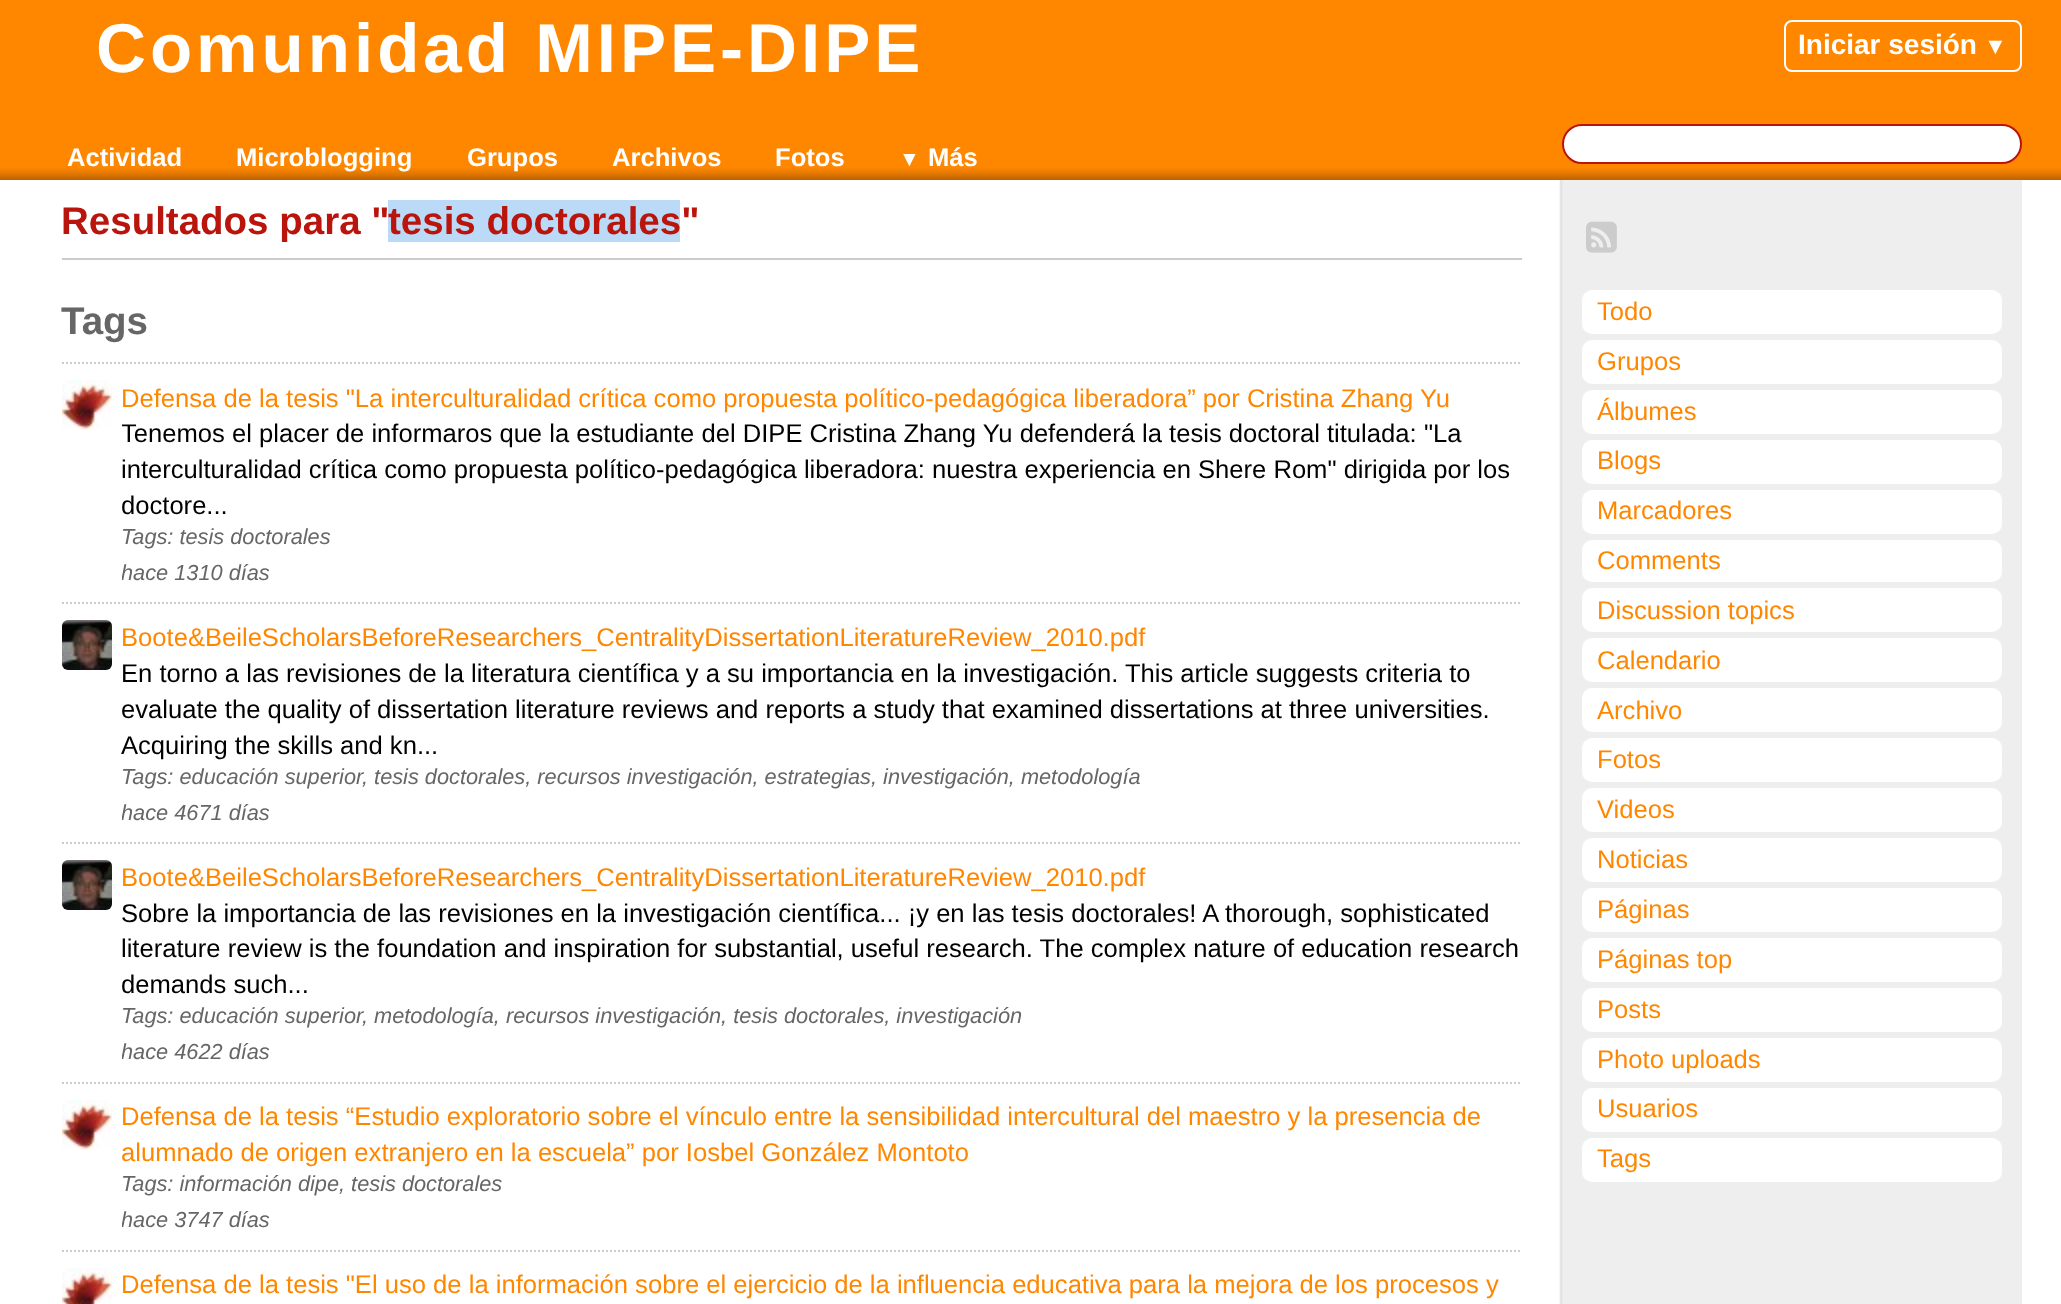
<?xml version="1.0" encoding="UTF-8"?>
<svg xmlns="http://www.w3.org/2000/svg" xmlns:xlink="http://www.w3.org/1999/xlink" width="2061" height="1304">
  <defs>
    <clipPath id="clip1"><rect x="122" y="380" width="1400" height="216" /></clipPath>
    <clipPath id="clip2"><rect x="122" y="620" width="1400" height="216" /></clipPath>
    <clipPath id="clip3"><rect x="122" y="860" width="1400" height="216" /></clipPath>
    <clipPath id="clip4"><rect x="122" y="1100" width="1400" height="144" /></clipPath>
  </defs>
  <rect width="100%" height="100%" fill="#ffffff" />
  <rect width="2061" height="180" fill="#ff8700" />
  <image x="0" y="168" width="2061" height="12" xlink:href="image1.png" />
  <rect x="1785" y="21" width="236" height="50" rx="7" fill="none" stroke="#ffffff" stroke-width="2" />
  <rect x="1563" y="125" width="458" height="38" rx="19" fill="#ffffff" stroke="#b9150d" stroke-width="2" />
  <image x="1559" y="180" width="463" height="1124" xlink:href="image2.png" />
  <rect x="62" y="258" width="1460" height="2" fill="#cccccc" />
  <rect x="388" y="200" width="292" height="42" fill="#bbdaf7" />
  <path d="M 62 363 h 1460" fill="none" stroke="#cccccc" stroke-width="2" stroke-dasharray="2 2" />
  <path d="M 62 603 h 1460" fill="none" stroke="#cccccc" stroke-width="2" stroke-dasharray="2 2" />
  <image x="62" y="380" width="50" height="50" xlink:href="image3.png" />
  <path d="M 62 843 h 1460" fill="none" stroke="#cccccc" stroke-width="2" stroke-dasharray="2 2" />
  <image x="62" y="620" width="50" height="50" xlink:href="image4.png" />
  <path d="M 62 1083 h 1460" fill="none" stroke="#cccccc" stroke-width="2" stroke-dasharray="2 2" />
  <image x="62" y="860" width="50" height="50" xlink:href="image4.png" />
  <path d="M 62 1251 h 1460" fill="none" stroke="#cccccc" stroke-width="2" stroke-dasharray="2 2" />
  <image x="62" y="1100" width="50" height="50" xlink:href="image3.png" />
  <image x="62" y="1268" width="50" height="36" xlink:href="image5.png" />
  <image x="1586" y="221" width="31" height="32" xlink:href="image6.png" />
  <rect x="1582" y="290" width="420" height="44" rx="10" fill="#ffffff" />
  <rect x="1582" y="340" width="420" height="44" rx="10" fill="#ffffff" />
  <rect x="1582" y="390" width="420" height="44" rx="10" fill="#ffffff" />
  <rect x="1582" y="440" width="420" height="44" rx="10" fill="#ffffff" />
  <rect x="1582" y="490" width="420" height="44" rx="10" fill="#ffffff" />
  <rect x="1582" y="540" width="420" height="42" rx="10" fill="#ffffff" />
  <rect x="1582" y="588" width="420" height="44" rx="10" fill="#ffffff" />
  <rect x="1582" y="638" width="420" height="44" rx="10" fill="#ffffff" />
  <rect x="1582" y="688" width="420" height="44" rx="10" fill="#ffffff" />
  <rect x="1582" y="738" width="420" height="44" rx="10" fill="#ffffff" />
  <rect x="1582" y="788" width="420" height="44" rx="10" fill="#ffffff" />
  <rect x="1582" y="838" width="420" height="44" rx="10" fill="#ffffff" />
  <rect x="1582" y="888" width="420" height="44" rx="10" fill="#ffffff" />
  <rect x="1582" y="938" width="420" height="44" rx="10" fill="#ffffff" />
  <rect x="1582" y="988" width="420" height="44" rx="10" fill="#ffffff" />
  <rect x="1582" y="1038" width="420" height="44" rx="10" fill="#ffffff" />
  <rect x="1582" y="1088" width="420" height="44" rx="10" fill="#ffffff" />
  <rect x="1582" y="1138" width="420" height="44" rx="10" fill="#ffffff" />
  <text x="96" y="72" style="font-family: Liberation Sans; font-size: 69.1px; font-weight: bold; letter-spacing: 4px; fill: #ffffff">Comunidad MIPE-DIPE</text>
  <text x="1798" y="54" style="font-family: Liberation Sans; font-size: 28px; font-weight: bold; fill: #ffffff">Iniciar sesión</text>
  <text x="1984" y="54" style="font-family: Liberation Sans; font-size: 23px; font-weight: bold; fill: #ffffff">▼</text>
  <text x="67" y="166" style="font-family: Liberation Sans; font-size: 25.6px; font-weight: bold; fill: #ffffff">Actividad</text>
  <text x="236" y="166" style="font-family: Liberation Sans; font-size: 25.6px; font-weight: bold; fill: #ffffff">Microblogging</text>
  <text x="467" y="166" style="font-family: Liberation Sans; font-size: 25.6px; font-weight: bold; fill: #ffffff">Grupos</text>
  <text x="612" y="166" style="font-family: Liberation Sans; font-size: 25.6px; font-weight: bold; fill: #ffffff">Archivos</text>
  <text x="775" y="166" style="font-family: Liberation Sans; font-size: 25.6px; font-weight: bold; fill: #ffffff">Fotos</text>
  <text x="899" y="166" style="font-family: Liberation Sans; font-size: 21px; font-weight: bold; fill: #ffffff">▼</text>
  <text x="928" y="166" style="font-family: Liberation Sans; font-size: 25.6px; font-weight: bold; fill: #ffffff">Más</text>
  <text x="61" y="234" style="font-family: Liberation Sans; font-size: 38.5px; font-weight: bold; fill: #b9150d">Resultados para "</text>
  <text x="388" y="234" style="font-family: Liberation Sans; font-size: 38.5px; font-weight: bold; fill: #b9150d">tesis doctorales"</text>
  <text x="61" y="334" style="font-family: Liberation Sans; font-size: 38.5px; font-weight: bold; fill: #666666">Tags</text>
  <text x="121" y="407" style="font-family: Liberation Sans; font-size: 25.6px; fill: #ff8700">Defensa de la tesis "La interculturalidad crítica como propuesta político-pedagógica liberadora” por Cristina Zhang Yu</text>
  <g clip-path="url(#clip1)">
    <text x="121" y="442" style="font-family: Liberation Sans; font-size: 25.6px; fill: #000000">Tenemos el placer de informaros que la estudiante del DIPE Cristina Zhang Yu defenderá la tesis doctoral titulada:</text>
  </g>
  <text x="1424" y="442" style="font-family: Liberation Sans; font-size: 25.6px; fill: #000000">"La</text>
  <text x="121" y="478" style="font-family: Liberation Sans; font-size: 25.6px; fill: #000000">interculturalidad crítica como propuesta político-pedagógica liberadora: nuestra experiencia en Shere Rom" dirigida por los</text>
  <text x="121" y="514" style="font-family: Liberation Sans; font-size: 25.6px; fill: #000000">doctore...</text>
  <text x="121" y="544" style="font-family: Liberation Sans; font-size: 21.75px; font-style: italic; fill: #666666">Tags: tesis doctorales</text>
  <g clip-path="url(#clip1)">
    <text x="121" y="580" style="font-family: Liberation Sans; font-size: 21.75px; font-style: italic; fill: #666666">hace 1310 días</text>
  </g>
  <text x="121" y="646" style="font-family: Liberation Sans; font-size: 25.6px; fill: #ff8700">Boote&amp;BeileScholarsBeforeResearchers_CentralityDissertationLiteratureReview_2010.pdf</text>
  <text x="121" y="682" style="font-family: Liberation Sans; font-size: 25.6px; fill: #000000">En torno a las revisiones de la literatura científica y a su importancia en la investigación. This article suggests criteria to</text>
  <text x="121" y="718" style="font-family: Liberation Sans; font-size: 25.6px; fill: #000000">evaluate the quality of dissertation literature reviews and reports a study that examined dissertations at three universities.</text>
  <text x="121" y="754" style="font-family: Liberation Sans; font-size: 25.6px; fill: #000000">Acquiring the skills and kn...</text>
  <text x="121" y="784" style="font-family: Liberation Sans; font-size: 21.75px; font-style: italic; fill: #666666">Tags: educación superior, tesis doctorales, recursos investigación, estrategias, investigación, metodología</text>
  <g clip-path="url(#clip2)">
    <text x="121" y="820" style="font-family: Liberation Sans; font-size: 21.75px; font-style: italic; fill: #666666">hace 4671 días</text>
  </g>
  <text x="121" y="886" style="font-family: Liberation Sans; font-size: 25.6px; fill: #ff8700">Boote&amp;BeileScholarsBeforeResearchers_CentralityDissertationLiteratureReview_2010.pdf</text>
  <text x="121" y="922" style="font-family: Liberation Sans; font-size: 25.6px; fill: #000000">Sobre la importancia de las revisiones en la investigación científica... ¡y en las tesis doctorales! A thorough, sophisticated</text>
  <text x="121" y="957" style="font-family: Liberation Sans; font-size: 25.6px; fill: #000000">literature review is the foundation and inspiration for substantial, useful research. The complex nature of education research</text>
  <text x="121" y="993" style="font-family: Liberation Sans; font-size: 25.6px; fill: #000000">demands such...</text>
  <text x="121" y="1023" style="font-family: Liberation Sans; font-size: 21.75px; font-style: italic; fill: #666666">Tags: educación superior, metodología, recursos investigación, tesis doctorales, investigación</text>
  <g clip-path="url(#clip3)">
    <text x="121" y="1059" style="font-family: Liberation Sans; font-size: 21.75px; font-style: italic; fill: #666666">hace 4622 días</text>
  </g>
  <text x="121" y="1125" style="font-family: Liberation Sans; font-size: 25.6px; fill: #ff8700">Defensa de la tesis “Estudio exploratorio sobre el vínculo entre la sensibilidad intercultural del maestro y la presencia de</text>
  <text x="121" y="1161" style="font-family: Liberation Sans; font-size: 25.6px; fill: #ff8700">alumnado de origen extranjero en la escuela” por Iosbel González Montoto</text>
  <text x="121" y="1191" style="font-family: Liberation Sans; font-size: 21.75px; font-style: italic; fill: #666666">Tags: información dipe, tesis doctorales</text>
  <g clip-path="url(#clip4)">
    <text x="121" y="1227" style="font-family: Liberation Sans; font-size: 21.75px; font-style: italic; fill: #666666">hace 3747 días</text>
  </g>
  <text x="121" y="1293" style="font-family: Liberation Sans; font-size: 25.6px; fill: #ff8700">Defensa de la tesis "El uso de la información sobre el ejercicio de la influencia educativa para la mejora de los procesos y</text>
  <text x="1597" y="320" style="font-family: Liberation Sans; font-size: 25.6px; fill: #ff8700">Todo</text>
  <text x="1597" y="370" style="font-family: Liberation Sans; font-size: 25.6px; fill: #ff8700">Grupos</text>
  <text x="1597" y="420" style="font-family: Liberation Sans; font-size: 25.6px; fill: #ff8700">Álbumes</text>
  <text x="1597" y="469" style="font-family: Liberation Sans; font-size: 25.6px; fill: #ff8700">Blogs</text>
  <text x="1597" y="519" style="font-family: Liberation Sans; font-size: 25.6px; fill: #ff8700">Marcadores</text>
  <text x="1597" y="569" style="font-family: Liberation Sans; font-size: 25.6px; fill: #ff8700">Comments</text>
  <text x="1597" y="619" style="font-family: Liberation Sans; font-size: 25.6px; fill: #ff8700">Discussion topics</text>
  <text x="1597" y="669" style="font-family: Liberation Sans; font-size: 25.6px; fill: #ff8700">Calendario</text>
  <text x="1597" y="719" style="font-family: Liberation Sans; font-size: 25.6px; fill: #ff8700">Archivo</text>
  <text x="1597" y="768" style="font-family: Liberation Sans; font-size: 25.6px; fill: #ff8700">Fotos</text>
  <text x="1597" y="818" style="font-family: Liberation Sans; font-size: 25.6px; fill: #ff8700">Videos</text>
  <text x="1597" y="868" style="font-family: Liberation Sans; font-size: 25.6px; fill: #ff8700">Noticias</text>
  <text x="1597" y="918" style="font-family: Liberation Sans; font-size: 25.6px; fill: #ff8700">Páginas</text>
  <text x="1597" y="968" style="font-family: Liberation Sans; font-size: 25.6px; fill: #ff8700">Páginas top</text>
  <text x="1597" y="1018" style="font-family: Liberation Sans; font-size: 25.6px; fill: #ff8700">Posts</text>
  <text x="1597" y="1068" style="font-family: Liberation Sans; font-size: 25.6px; fill: #ff8700">Photo uploads</text>
  <text x="1597" y="1117" style="font-family: Liberation Sans; font-size: 25.6px; fill: #ff8700">Usuarios</text>
  <text x="1597" y="1167" style="font-family: Liberation Sans; font-size: 25.6px; fill: #ff8700">Tags</text>
</svg>
